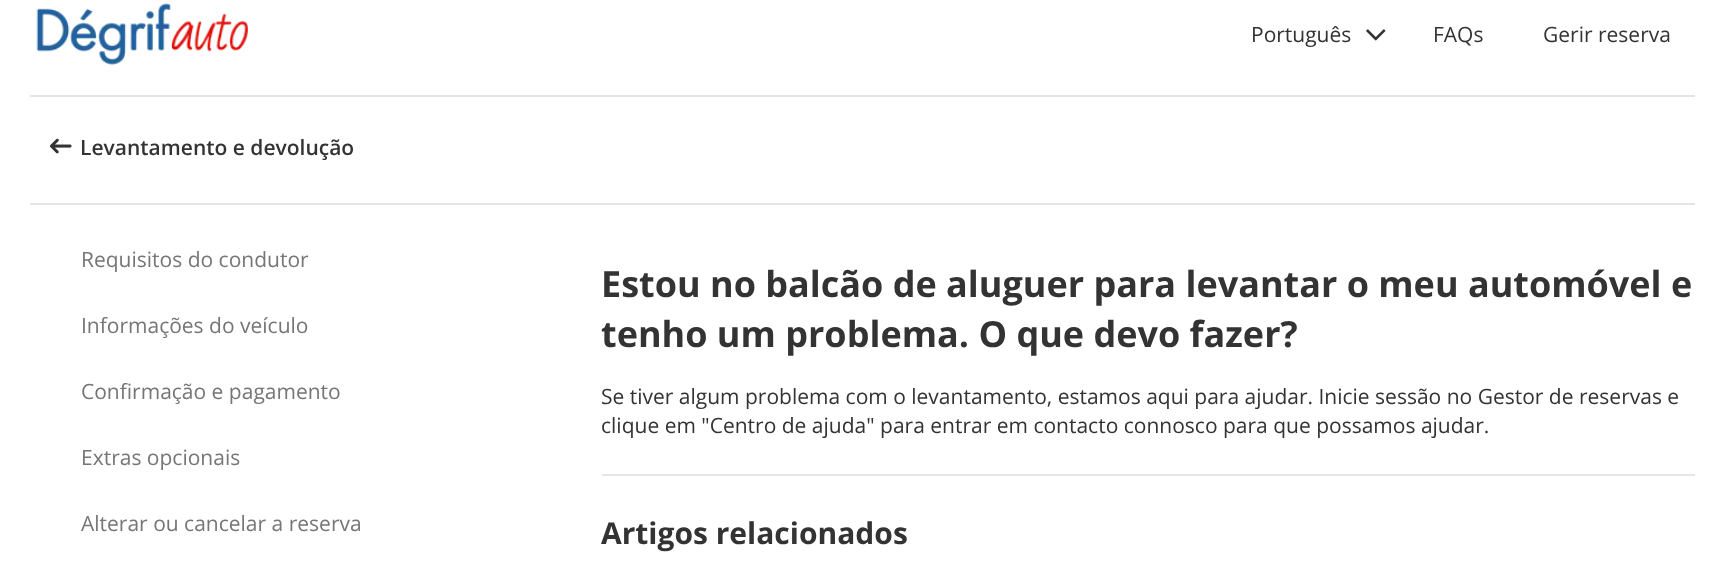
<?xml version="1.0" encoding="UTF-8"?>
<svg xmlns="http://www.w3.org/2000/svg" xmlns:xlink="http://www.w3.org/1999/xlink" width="1724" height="563">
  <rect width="100%" height="100%" fill="#ffffff" />
  <image x="36" y="3" width="212" height="62" xlink:href="image1.png" />
  <image x="1366" y="29" width="20" height="12" xlink:href="image2.png" />
  <rect x="30" y="95" width="1665" height="2" fill="#e5e5e5" />
  <image x="50" y="138" width="22" height="16" xlink:href="image3.png" />
  <rect x="30" y="203" width="1665" height="2" fill="#e5e5e5" />
  <rect x="602" y="474" width="1093" height="2" fill="#e5e5e5" />
  <text x="1251" y="42" style="font-family: Open Sans; font-size: 21px; fill: #333333">Português</text>
  <text x="1433" y="42" style="font-family: Open Sans; font-size: 21px; fill: #333333">FAQs</text>
  <text x="1543" y="42" style="font-family: Open Sans; font-size: 21px; fill: #333333">Gerir reserva</text>
  <text x="80" y="155" style="font-family: Open Sans; font-size: 21px; font-weight: 600; fill: #333333">Levantamento e devolução</text>
  <text x="81" y="267" style="font-family: Open Sans; font-size: 21px; fill: #767676">Requisitos do condutor</text>
  <text x="81" y="333" style="font-family: Open Sans; font-size: 21px; fill: #767676">Informações do veículo</text>
  <text x="81" y="399" style="font-family: Open Sans; font-size: 21px; fill: #767676">Confirmação e pagamento</text>
  <text x="81" y="465" style="font-family: Open Sans; font-size: 21px; fill: #767676">Extras opcionais</text>
  <text x="81" y="531" style="font-family: Open Sans; font-size: 21px; fill: #767676">Alterar ou cancelar a reserva</text>
  <text x="601" y="297" style="font-family: Open Sans; font-size: 36px; font-weight: bold; fill: #333333">Estou no balcão de aluguer para levantar o meu automóvel e</text>
  <text x="601" y="347" style="font-family: Open Sans; font-size: 36px; font-weight: bold; fill: #333333">tenho um problema. O que devo fazer?</text>
  <text x="601" y="404" style="font-family: Open Sans; font-size: 21px; fill: #333333">Se tiver algum problema com o levantamento, estamos aqui para ajudar. Inicie sessão no Gestor de reservas e</text>
  <text x="601" y="433" style="font-family: Open Sans; font-size: 21px; fill: #333333">clique em "Centro de ajuda" para entrar em contacto connosco para que possamos ajudar.</text>
  <text x="601" y="544" style="font-family: Open Sans; font-size: 30px; font-weight: bold; fill: #333333">Artigos relacionados</text>
</svg>
